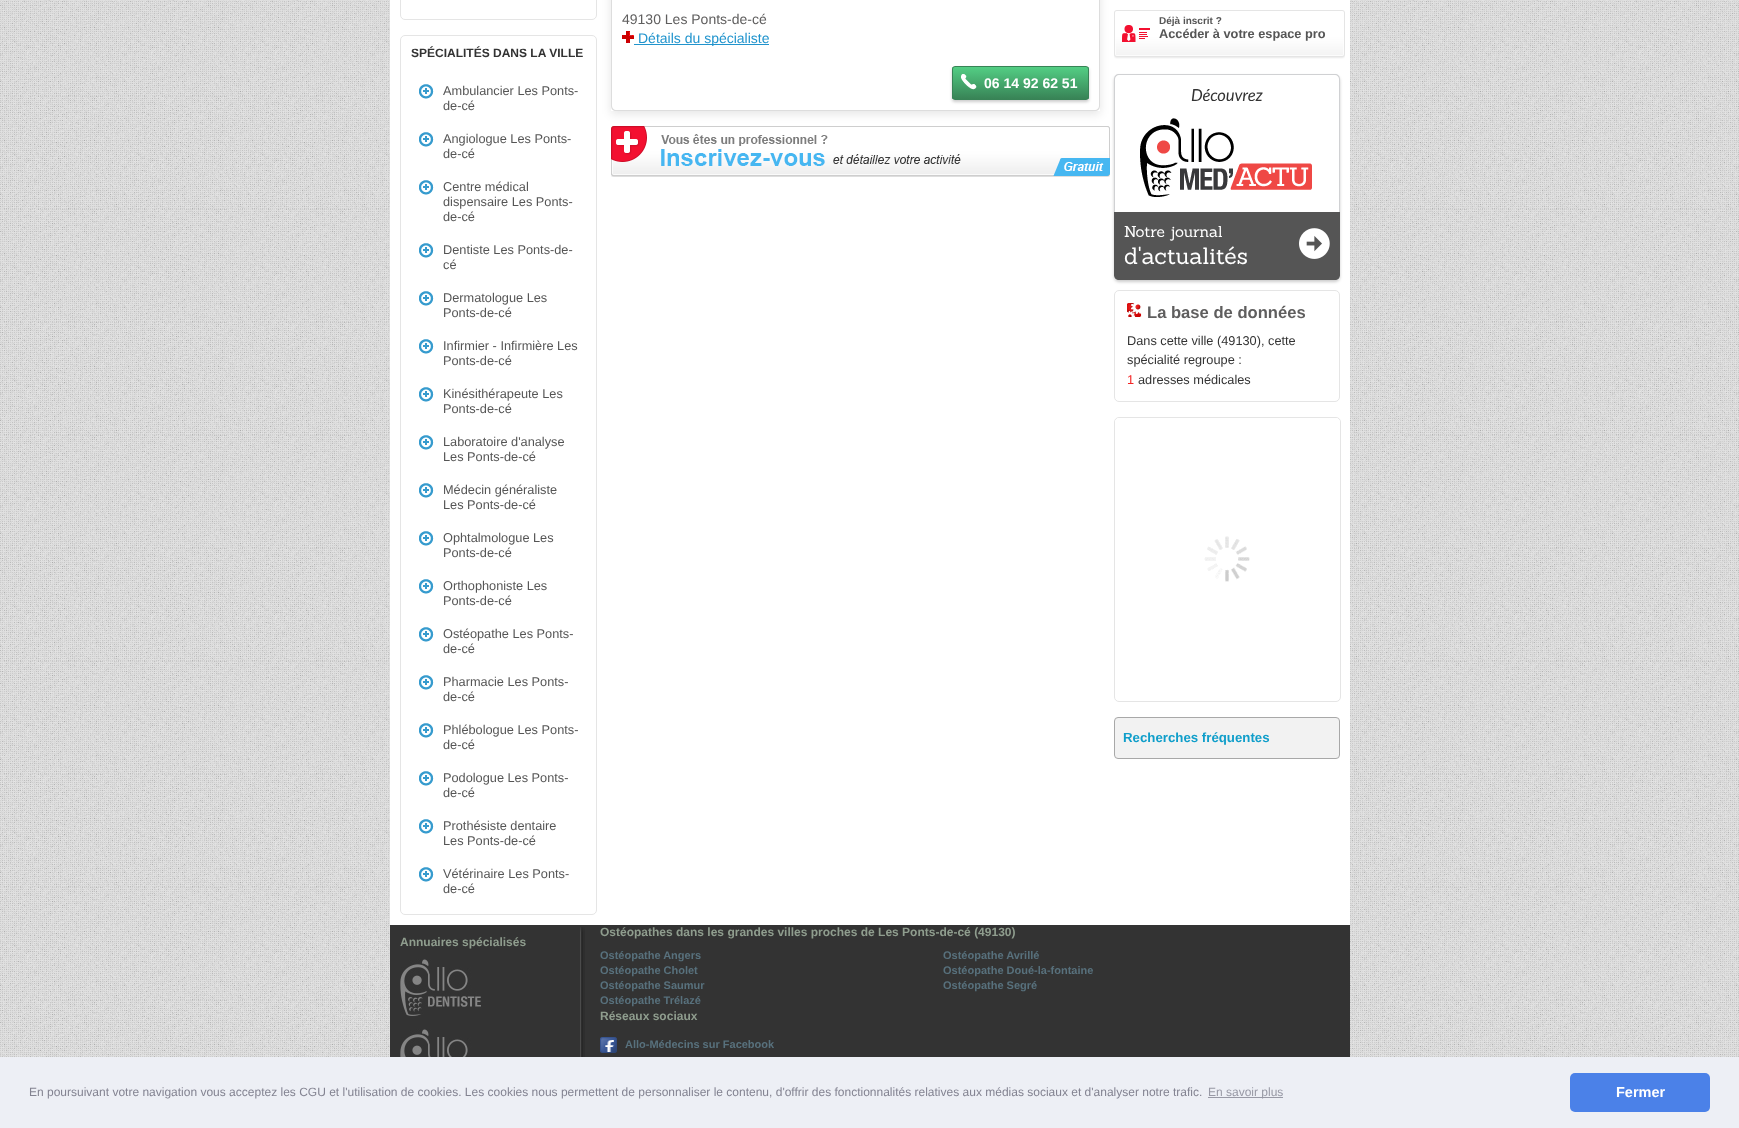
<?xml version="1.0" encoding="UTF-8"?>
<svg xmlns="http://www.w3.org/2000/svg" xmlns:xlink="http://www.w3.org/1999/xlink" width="1739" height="1128">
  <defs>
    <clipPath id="clip1"><path d="M 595 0 h 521 v 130 h -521 z m 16 -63 h 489 v 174 h -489 z" clip-rule="evenodd" /></clipPath>
    <clipPath id="clip2"><rect x="952" y="66" width="137" height="34" rx="3" /></clipPath>
    <linearGradient id="g1" gradientUnits="userSpaceOnUse" x1="1021" y1="67" x2="1021" y2="99"><stop offset="0" stop-color="#53ce84" /><stop offset="1" stop-color="#388356" /></linearGradient>
    <clipPath id="clip3"><path d="M 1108 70 h 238 v 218 h -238 z m 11 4 h 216 c 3 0 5 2 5 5 v 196 c 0 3 -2 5 -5 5 h -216 c -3 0 -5 -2 -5 -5 v -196 c 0 -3 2 -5 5 -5 z" clip-rule="evenodd" /></clipPath>
  </defs>
  <rect width="100%" height="100%" fill="#ffffff" />
  <image x="0" y="0" width="1739" height="1057" xlink:href="image1.png" />
  <rect x="390" width="960" height="925" fill="#ffffff" />
  <rect x="400.5" y="-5.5" width="196" height="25" rx="4.5" fill="none" stroke="#e5e5e5" />
  <rect x="400.5" y="35.5" width="196" height="879" rx="4.5" fill="none" stroke="#e5e5e5" />
  <image x="419" y="84" width="15" height="15" xlink:href="image2.png" />
  <image x="419" y="132" width="15" height="15" xlink:href="image2.png" />
  <image x="419" y="180" width="15" height="15" xlink:href="image2.png" />
  <image x="419" y="243" width="15" height="15" xlink:href="image2.png" />
  <image x="419" y="291" width="15" height="15" xlink:href="image2.png" />
  <image x="419" y="339" width="15" height="15" xlink:href="image2.png" />
  <image x="419" y="387" width="15" height="15" xlink:href="image2.png" />
  <image x="419" y="435" width="15" height="15" xlink:href="image2.png" />
  <image x="419" y="483" width="15" height="15" xlink:href="image2.png" />
  <image x="419" y="531" width="15" height="15" xlink:href="image2.png" />
  <image x="419" y="579" width="15" height="15" xlink:href="image2.png" />
  <image x="419" y="627" width="15" height="15" xlink:href="image2.png" />
  <image x="419" y="675" width="15" height="15" xlink:href="image2.png" />
  <image x="419" y="723" width="15" height="15" xlink:href="image2.png" />
  <image x="419" y="771" width="15" height="15" xlink:href="image2.png" />
  <image x="419" y="819" width="15" height="15" xlink:href="image2.png" />
  <image x="419" y="867" width="15" height="15" xlink:href="image2.png" />
  <g clip-path="url(#clip1)">
    <rect x="611" y="-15" width="489" height="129" fill="#000000" fill-opacity="0.1" filter="blur(5px)" />
  </g>
  <rect x="1099" width="1" height="56" fill="#dddddd" />
  <rect x="611" width="1" height="56" fill="#dddddd" />
  <image x="622" y="31" width="12" height="12" xlink:href="image3.png" />
  <rect x="634" y="44" width="135" height="1" fill="#2194cd" />
  <path d="M 611 56 h 489 v 50 c 0 3 -2 5 -5 5 h -479 c -3 0 -5 -2 -5 -5 z m 1 0 h 487 v 50 c 0 2 -2 4 -4 4 h -479 c -2 0 -4 -2 -4 -4 z" fill="#dddddd" fill-rule="evenodd" />
  <rect x="952" y="68" width="137" height="34" rx="3" fill="#000000" fill-opacity="0.2" filter="blur(1.5px)" />
  <g clip-path="url(#clip2)">
    <rect x="952" y="67" width="137" height="32" fill="url(#g1)" />
  </g>
  <rect x="952.5" y="66.5" width="136" height="33" rx="2.5" fill="none" stroke="#388356" />
  <image x="961" y="74" width="16" height="16" xlink:href="image4.png" />
  <image x="611" y="126" width="499" height="51" xlink:href="image5.png" />
  <image x="1114" y="10" width="231" height="49" xlink:href="image6.png" />
  <g clip-path="url(#clip3)">
    <rect x="1114" y="76" width="226" height="206" rx="5" fill="#000000" fill-opacity="0.2" filter="blur(1.5px)" />
  </g>
  <path d="M 1119 74 h 216 c 3 0 5 2 5 5 v 133 h -226 v -133 c 0 -3 2 -5 5 -5 z m 0 1 h 216 c 2 0 4 2 4 4 v 133 h -224 v -133 c 0 -2 2 -4 4 -4 z" fill="#d0d1d3" fill-rule="evenodd" />
  <image x="1140" y="118" width="172" height="79" xlink:href="image7.png" />
  <path d="M 1114 212 h 226 v 63 c 0 3 -2 5 -5 5 h -216 c -3 0 -5 -2 -5 -5 z" fill="#555555" />
  <image x="1299" y="228" width="31" height="31" xlink:href="image8.png" />
  <rect x="1114.5" y="290.5" width="225" height="111" rx="4.5" fill="none" stroke="#e5e5e5" />
  <image x="1127" y="303" width="15" height="14" xlink:href="image9.png" />
  <image x="1204" y="536" width="46" height="46" xlink:href="image10.png" />
  <rect x="1114.5" y="417.5" width="226" height="284" rx="4.5" fill="none" stroke="#e5e5e5" />
  <path d="M 1119 418 h 217 c 2 0 4 2 4 4 v 24 h -225 v -24 c 0 -2 2 -4 4 -4 z" fill="#ffffff" />
  <rect x="1114.5" y="717.5" width="225" height="41" rx="3.5" fill="#f2f2f2" stroke="#a8a8a8" />
  <rect x="390" y="925" width="960" height="132" fill="#333333" />
  <image x="400" y="959" width="81" height="57" xlink:href="image11.png" />
  <image x="400" y="1029" width="116" height="28" xlink:href="image12.png" />
  <image x="580" y="927" width="5" height="130" xlink:href="image13.png" />
  <image x="600" y="1037" width="17" height="16" xlink:href="image14.png" />
  <rect y="1057" width="1739" height="71" fill="#edeff5" />
  <rect x="1208" y="1097" width="75" height="1" fill="#9899a5" />
  <rect x="1570" y="1073" width="140" height="39" rx="5" fill="#4b81e8" />
  <text x="411" y="57" style="font-family: Liberation Sans; font-size: 12px; font-weight: bold; fill: #333333">SPÉCIALITÉS DANS LA VILLE</text>
  <text x="443" y="95" style="font-family: Liberation Sans; font-size: 12.75px; fill: #555555">Ambulancier Les Ponts-</text>
  <text x="443" y="110" style="font-family: Liberation Sans; font-size: 12.75px; fill: #555555">de-cé</text>
  <text x="443" y="143" style="font-family: Liberation Sans; font-size: 12.75px; fill: #555555">Angiologue Les Ponts-</text>
  <text x="443" y="158" style="font-family: Liberation Sans; font-size: 12.75px; fill: #555555">de-cé</text>
  <text x="443" y="191" style="font-family: Liberation Sans; font-size: 12.75px; fill: #555555">Centre médical</text>
  <text x="443" y="206" style="font-family: Liberation Sans; font-size: 12.75px; fill: #555555">dispensaire Les Ponts-</text>
  <text x="443" y="221" style="font-family: Liberation Sans; font-size: 12.75px; fill: #555555">de-cé</text>
  <text x="443" y="254" style="font-family: Liberation Sans; font-size: 12.75px; fill: #555555">Dentiste Les Ponts-de-</text>
  <text x="443" y="269" style="font-family: Liberation Sans; font-size: 12.75px; fill: #555555">cé</text>
  <text x="443" y="302" style="font-family: Liberation Sans; font-size: 12.75px; fill: #555555">Dermatologue Les</text>
  <text x="443" y="317" style="font-family: Liberation Sans; font-size: 12.75px; fill: #555555">Ponts-de-cé</text>
  <text x="443" y="350" style="font-family: Liberation Sans; font-size: 12.75px; fill: #555555">Infirmier - Infirmière Les</text>
  <text x="443" y="365" style="font-family: Liberation Sans; font-size: 12.75px; fill: #555555">Ponts-de-cé</text>
  <text x="443" y="398" style="font-family: Liberation Sans; font-size: 12.75px; fill: #555555">Kinésithérapeute Les</text>
  <text x="443" y="413" style="font-family: Liberation Sans; font-size: 12.75px; fill: #555555">Ponts-de-cé</text>
  <text x="443" y="446" style="font-family: Liberation Sans; font-size: 12.75px; fill: #555555">Laboratoire d'analyse</text>
  <text x="443" y="461" style="font-family: Liberation Sans; font-size: 12.75px; fill: #555555">Les Ponts-de-cé</text>
  <text x="443" y="494" style="font-family: Liberation Sans; font-size: 12.75px; fill: #555555">Médecin généraliste</text>
  <text x="443" y="509" style="font-family: Liberation Sans; font-size: 12.75px; fill: #555555">Les Ponts-de-cé</text>
  <text x="443" y="542" style="font-family: Liberation Sans; font-size: 12.75px; fill: #555555">Ophtalmologue Les</text>
  <text x="443" y="557" style="font-family: Liberation Sans; font-size: 12.75px; fill: #555555">Ponts-de-cé</text>
  <text x="443" y="590" style="font-family: Liberation Sans; font-size: 12.75px; fill: #555555">Orthophoniste Les</text>
  <text x="443" y="605" style="font-family: Liberation Sans; font-size: 12.75px; fill: #555555">Ponts-de-cé</text>
  <text x="443" y="638" style="font-family: Liberation Sans; font-size: 12.75px; fill: #555555">Ostéopathe Les Ponts-</text>
  <text x="443" y="653" style="font-family: Liberation Sans; font-size: 12.75px; fill: #555555">de-cé</text>
  <text x="443" y="686" style="font-family: Liberation Sans; font-size: 12.75px; fill: #555555">Pharmacie Les Ponts-</text>
  <text x="443" y="701" style="font-family: Liberation Sans; font-size: 12.75px; fill: #555555">de-cé</text>
  <text x="443" y="734" style="font-family: Liberation Sans; font-size: 12.75px; fill: #555555">Phlébologue Les Ponts-</text>
  <text x="443" y="749" style="font-family: Liberation Sans; font-size: 12.75px; fill: #555555">de-cé</text>
  <text x="443" y="782" style="font-family: Liberation Sans; font-size: 12.75px; fill: #555555">Podologue Les Ponts-</text>
  <text x="443" y="797" style="font-family: Liberation Sans; font-size: 12.75px; fill: #555555">de-cé</text>
  <text x="443" y="830" style="font-family: Liberation Sans; font-size: 12.75px; fill: #555555">Prothésiste dentaire</text>
  <text x="443" y="845" style="font-family: Liberation Sans; font-size: 12.75px; fill: #555555">Les Ponts-de-cé</text>
  <text x="443" y="878" style="font-family: Liberation Sans; font-size: 12.75px; fill: #555555">Vétérinaire Les Ponts-</text>
  <text x="443" y="893" style="font-family: Liberation Sans; font-size: 12.75px; fill: #555555">de-cé</text>
  <text x="622" y="24" style="font-family: Liberation Sans; font-size: 14px; fill: #5f5e5e">49130 Les Ponts-de-cé</text>
  <text x="638" y="43" style="font-family: Liberation Sans; font-size: 14px; fill: #2194cd">Détails du spécialiste</text>
  <text x="984" y="88" style="font-family: Liberation Sans; font-size: 14px; font-weight: bold; fill: #ffffff">06 14 92 62 51</text>
  <text x="1159" y="24" style="font-family: Liberation Sans; font-size: 10px; font-weight: bold; fill: #555555">Déjà inscrit ?</text>
  <text x="1159" y="38" style="font-family: Liberation Sans; font-size: 12.75px; font-weight: bold; fill: #555555">Accéder à votre espace pro</text>
  <text x="1191" y="101" style="font-family: Lato; font-size: 16.6px; font-style: italic; fill: #333333">Découvrez</text>
  <text x="1124" y="237" style="font-family: Sanchez; font-size: 15.5px; fill: #ffffff">Notre journal</text>
  <text x="1124" y="264" style="font-family: Sanchez; font-size: 23px; fill: #ffffff">d'actualités</text>
  <text x="1147" y="318" style="font-family: Liberation Sans; font-size: 16.6px; font-weight: bold; fill: #5f5e5e">La base de données</text>
  <text x="1127" y="345" style="font-family: Liberation Sans; font-size: 12.75px; fill: #333333">Dans cette ville (49130), cette</text>
  <text x="1127" y="364" style="font-family: Liberation Sans; font-size: 12.75px; fill: #333333">spécialité regroupe :</text>
  <text x="1127" y="384" style="font-family: Liberation Sans; font-size: 12.75px; fill: #f32323">1</text>
  <text x="1138" y="384" style="font-family: Liberation Sans; font-size: 12.75px; fill: #333333">adresses médicales</text>
  <text x="1123" y="742" style="font-family: Liberation Sans; font-size: 13.25px; font-weight: bold; fill: #0f9eca">Recherches fréquentes</text>
  <text x="400" y="946" style="font-family: Liberation Sans; font-size: 12px; font-weight: bold; fill: #8f9d8e">Annuaires spécialisés</text>
  <text x="600" y="936" style="font-family: Liberation Sans; font-size: 12px; font-weight: bold; fill: #8f9d8e">Ostéopathes dans les grandes villes proches de Les Ponts-de-cé (49130)</text>
  <text x="600" y="959" style="font-family: Liberation Sans; font-size: 11px; font-weight: bold; fill: #58717d">Ostéopathe Angers</text>
  <text x="943" y="959" style="font-family: Liberation Sans; font-size: 11px; font-weight: bold; fill: #58717d">Ostéopathe Avrillé</text>
  <text x="600" y="974" style="font-family: Liberation Sans; font-size: 11px; font-weight: bold; fill: #58717d">Ostéopathe Cholet</text>
  <text x="943" y="974" style="font-family: Liberation Sans; font-size: 11px; font-weight: bold; fill: #58717d">Ostéopathe Doué-la-fontaine</text>
  <text x="600" y="989" style="font-family: Liberation Sans; font-size: 11px; font-weight: bold; fill: #58717d">Ostéopathe Saumur</text>
  <text x="943" y="989" style="font-family: Liberation Sans; font-size: 11px; font-weight: bold; fill: #58717d">Ostéopathe Segré</text>
  <text x="600" y="1004" style="font-family: Liberation Sans; font-size: 11px; font-weight: bold; fill: #58717d">Ostéopathe Trélazé</text>
  <text x="600" y="1020" style="font-family: Liberation Sans; font-size: 12px; font-weight: bold; fill: #8f9d8e">Réseaux sociaux</text>
  <text x="625" y="1048" style="font-family: Liberation Sans; font-size: 11px; font-weight: bold; fill: #58717d">Allo-Médecins sur Facebook</text>
  <text x="29" y="1096" style="font-family: Liberation Sans; font-size: 12px; fill: #838391">En poursuivant votre navigation vous acceptez les CGU et l'utilisation de cookies. Les cookies nous permettent de personnaliser le contenu, d'offrir des fonctionnalités relatives aux médias sociaux et d'analyser notre trafic.</text>
  <text x="1208" y="1096" style="font-family: Liberation Sans; font-size: 12px; fill: #9899a5">En savoir plus</text>
  <text x="1616" y="1097" style="font-family: Liberation Sans; font-size: 14.5px; font-weight: bold; fill: #ffffff">Fermer</text>
</svg>
